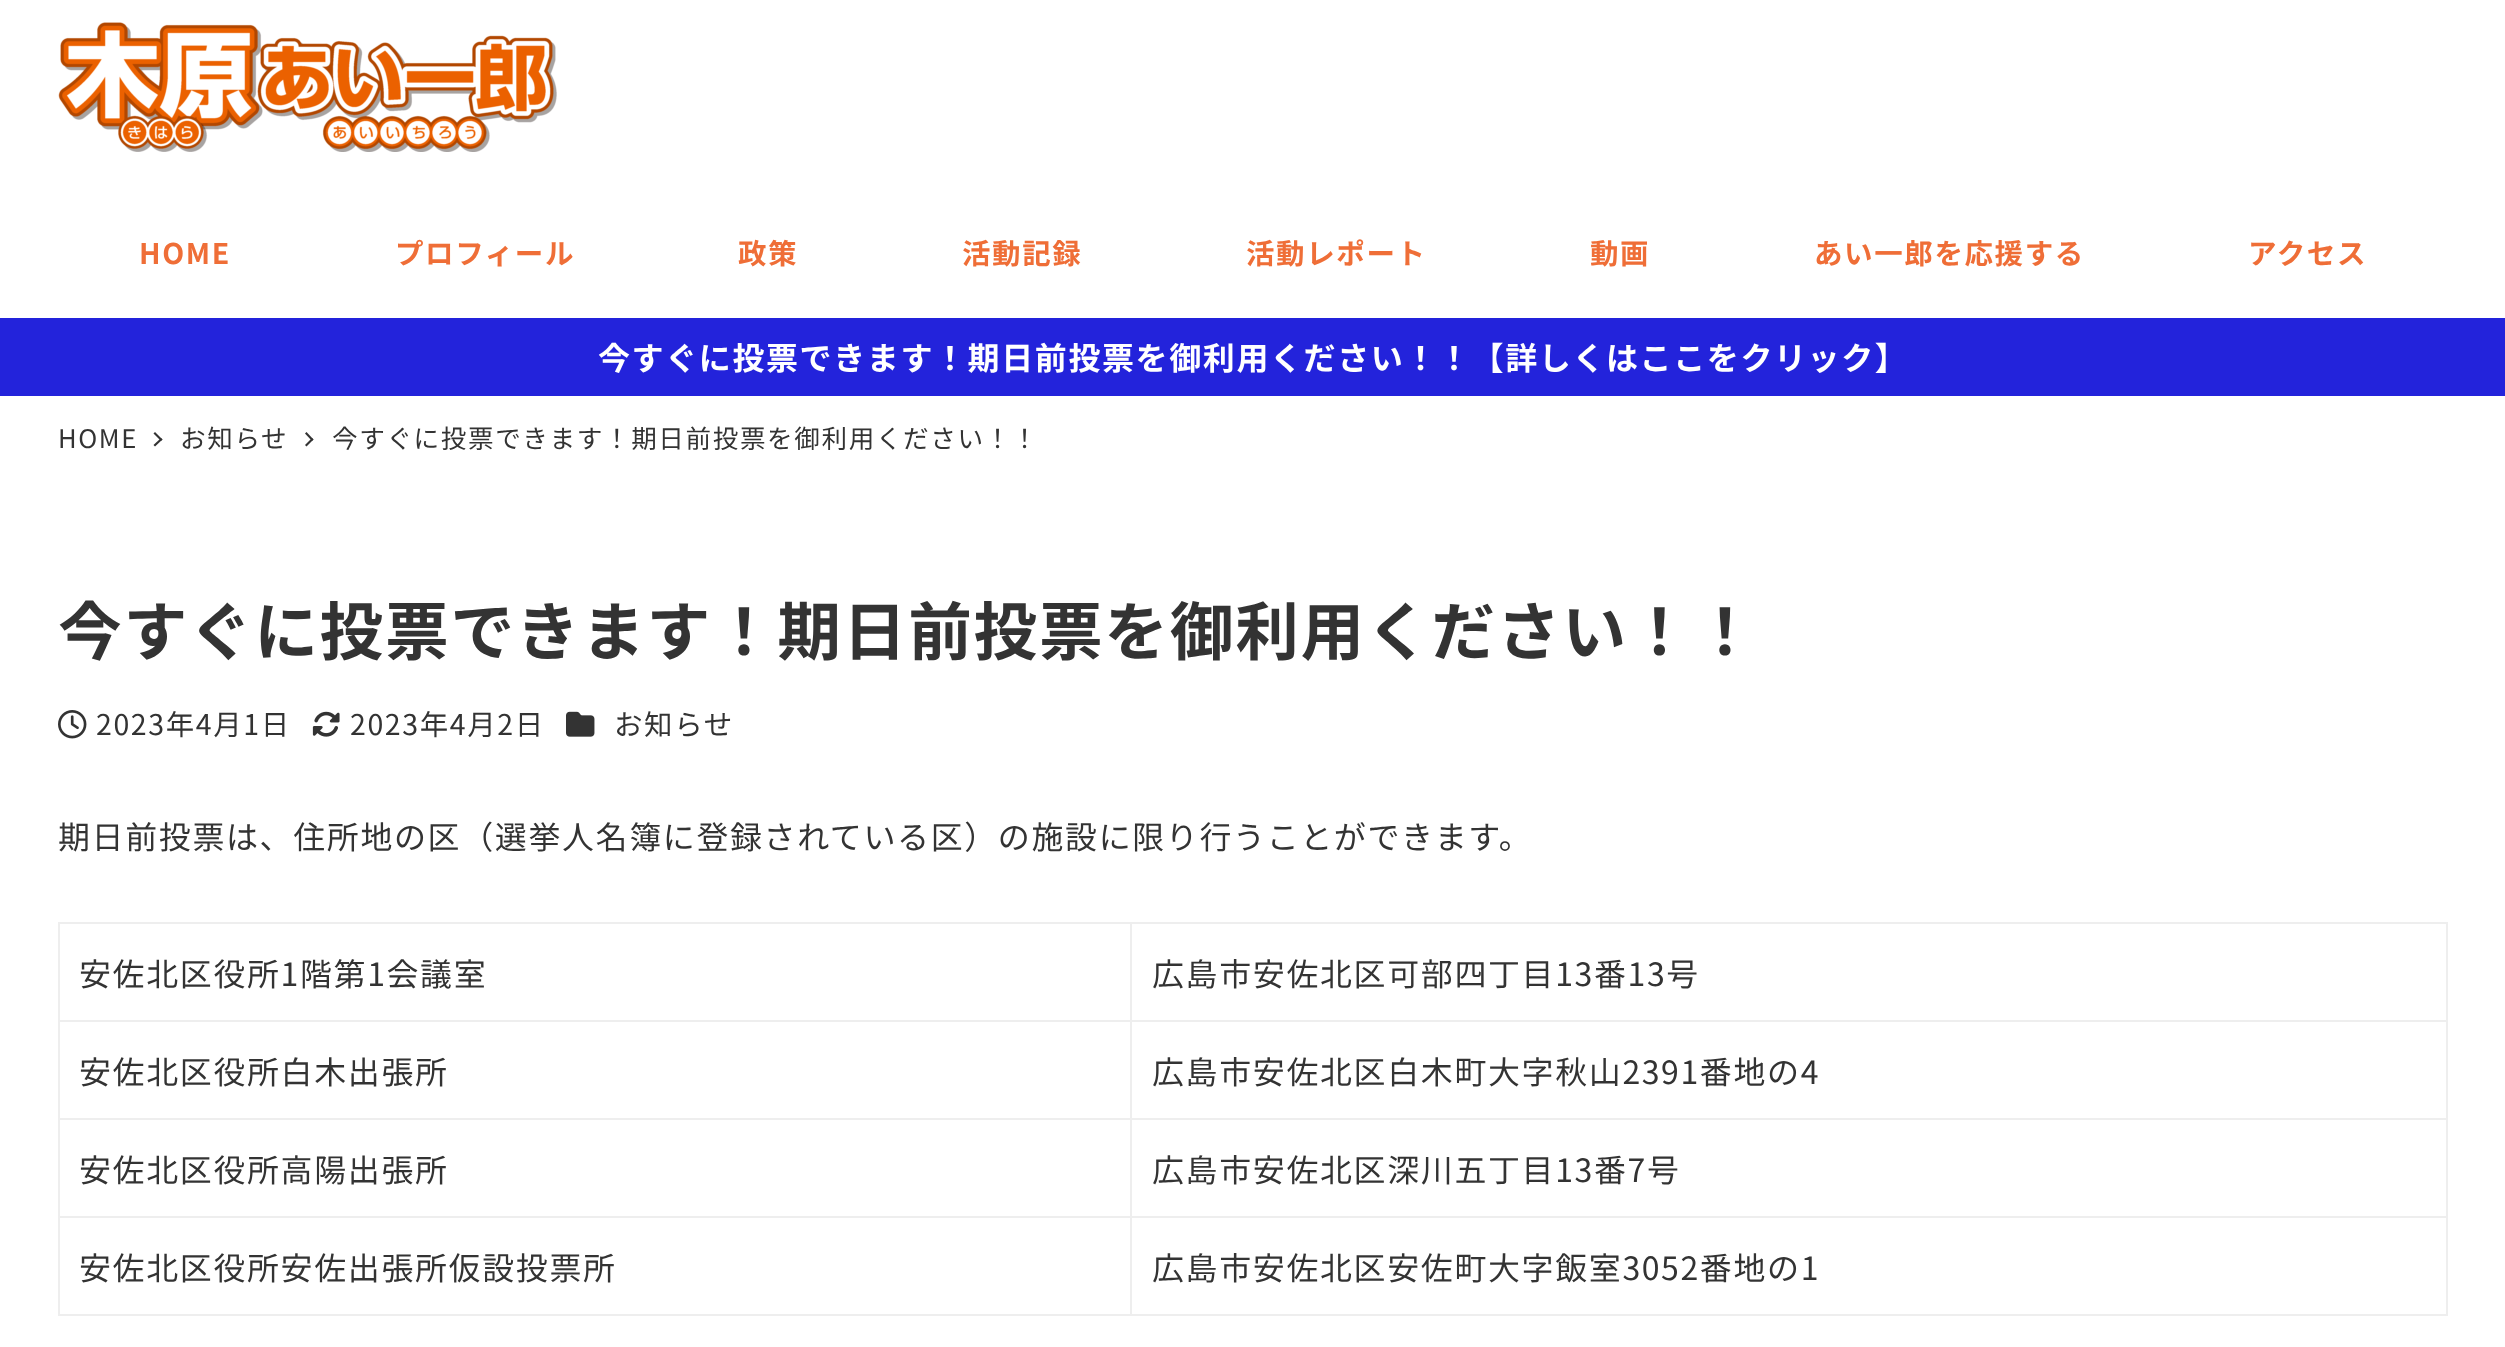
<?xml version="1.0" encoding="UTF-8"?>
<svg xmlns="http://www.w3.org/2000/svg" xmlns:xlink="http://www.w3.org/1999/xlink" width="2505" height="1347">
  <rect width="100%" height="100%" fill="#ffffff" />
  <image x="58" y="22" width="499" height="130" xlink:href="image1.png" />
  <rect y="318" width="2505" height="78" fill="#2323db" />
  <path d="M 155 432 l 7.5 7.5 l -1.5 1.5 l -7.5 -7.5 z" fill="#333333" />
  <path d="M 161 438 l 1.5 1.5 l -7.5 7 l -1.5 -1.5 z" fill="#333333" />
  <path d="M 306.5 432 l 7 7.5 l -1.5 1.5 l -7 -7.5 z" fill="#333333" />
  <path d="M 312 438 l 1.5 1.5 l -7 7 l -1.5 -1.5 z" fill="#333333" />
  <image x="58" y="710" width="29" height="29" xlink:href="image2.png" />
  <image x="312" y="711" width="28" height="26" xlink:href="image3.png" />
  <image x="566" y="711" width="29" height="26" xlink:href="image4.png" />
  <rect x="1130" y="922" width="1318" height="2" fill="#eeeeee" />
  <rect x="1130" y="1020" width="1318" height="2" fill="#eeeeee" />
  <rect x="1130" y="1118" width="1318" height="2" fill="#eeeeee" />
  <rect x="1130" y="1216" width="1318" height="2" fill="#eeeeee" />
  <rect x="2446" y="1216" width="2" height="100" fill="#eeeeee" />
  <rect x="1130" y="1314" width="1318" height="2" fill="#eeeeee" />
  <rect x="1130" y="1216" width="2" height="100" fill="#eeeeee" />
  <rect x="58" y="1216" width="1074" height="2" fill="#eeeeee" />
  <rect x="1130" y="1118" width="2" height="100" fill="#eeeeee" />
  <rect x="58" y="1118" width="1074" height="2" fill="#eeeeee" />
  <rect x="1130" y="1020" width="2" height="100" fill="#eeeeee" />
  <rect x="58" y="1020" width="1074" height="2" fill="#eeeeee" />
  <rect x="1130" y="922" width="2" height="100" fill="#eeeeee" />
  <rect x="58" y="922" width="1074" height="2" fill="#eeeeee" />
  <rect x="58" y="1314" width="1074" height="2" fill="#eeeeee" />
  <rect x="58" y="1216" width="2" height="100" fill="#eeeeee" />
  <rect x="58" y="1118" width="2" height="100" fill="#eeeeee" />
  <rect x="58" y="1020" width="2" height="100" fill="#eeeeee" />
  <rect x="58" y="922" width="2" height="100" fill="#eeeeee" />
  <rect x="2446" y="1118" width="2" height="100" fill="#eeeeee" />
  <rect x="2446" y="1020" width="2" height="100" fill="#eeeeee" />
  <rect x="2446" y="922" width="2" height="100" fill="#eeeeee" />
  <text x="139" y="264" style="font-family: Noto Sans JP; font-size: 28.5px; font-weight: bold; letter-spacing: 1.6px; fill: #ef6e37">HOME</text>
  <text x="395" y="264" style="font-family: Noto Sans JP; font-size: 28.5px; font-weight: bold; letter-spacing: 1.6px; fill: #ef6e37">プロフィール</text>
  <text x="738" y="264" style="font-family: Noto Sans JP; font-size: 28.5px; font-weight: bold; letter-spacing: 1.6px; fill: #ef6e37">政策</text>
  <text x="962" y="264" style="font-family: Noto Sans JP; font-size: 28.5px; font-weight: bold; letter-spacing: 1.6px; fill: #ef6e37">活動記録</text>
  <text x="1246" y="264" style="font-family: Noto Sans JP; font-size: 28.5px; font-weight: bold; letter-spacing: 1.6px; fill: #ef6e37">活動レポート</text>
  <text x="1590" y="264" style="font-family: Noto Sans JP; font-size: 28.5px; font-weight: bold; letter-spacing: 1.6px; fill: #ef6e37">動画</text>
  <text x="1814" y="264" style="font-family: Noto Sans JP; font-size: 28.5px; font-weight: bold; letter-spacing: 1.6px; fill: #ef6e37">あい一郎を応援する</text>
  <text x="2248" y="264" style="font-family: Noto Sans JP; font-size: 28.5px; font-weight: bold; letter-spacing: 1.6px; fill: #ef6e37">アクセス</text>
  <text x="598" y="370" style="font-family: Noto Sans JP; font-size: 32px; font-weight: bold; letter-spacing: 1.6px; fill: #ffffff">今すぐに投票できます！期日前投票を御利用ください！！【詳しくはここをクリック】</text>
  <text x="58" y="448" style="font-family: Noto Sans JP; font-size: 25.6px; letter-spacing: 1.6px; fill: #333333">HOME</text>
  <text x="180" y="448" style="font-family: Noto Sans JP; font-size: 25.6px; letter-spacing: 1.6px; fill: #333333">お知らせ</text>
  <text x="332" y="448" style="font-family: Noto Sans JP; font-size: 25.6px; letter-spacing: 1.6px; fill: #333333">今すぐに投票できます！期日前投票を御利用ください！！</text>
  <text x="58" y="655" style="font-family: Noto Sans JP; font-size: 63.8px; font-weight: bold; letter-spacing: 1.6px; fill: #333333">今すぐに投票できます！期日前投票を御利用ください！！</text>
  <text x="96" y="735" style="font-family: Noto Sans JP; font-size: 28.5px; letter-spacing: 1.6px; fill: #333333">2023年4月1日</text>
  <text x="350" y="735" style="font-family: Noto Sans JP; font-size: 28.5px; letter-spacing: 1.6px; fill: #333333">2023年4月2日</text>
  <text x="614" y="735" style="font-family: Noto Sans JP; font-size: 28.5px; letter-spacing: 1.6px; fill: #333333">お知らせ</text>
  <text x="58" y="849" style="font-family: Noto Sans JP; font-size: 32px; letter-spacing: 1.6px; fill: #333333">期日前投票は、住所地の区（選挙人名簿に登録されている区）の施設に限り行うことができます。</text>
  <text x="79" y="986" style="font-family: Noto Sans JP; font-size: 32px; letter-spacing: 1.6px; fill: #333333">安佐北区役所1階第1会議室</text>
  <text x="1152" y="986" style="font-family: Noto Sans JP; font-size: 32px; letter-spacing: 1.6px; fill: #333333">広島市安佐北区可部四丁目13番13号</text>
  <text x="79" y="1084" style="font-family: Noto Sans JP; font-size: 32px; letter-spacing: 1.6px; fill: #333333">安佐北区役所白木出張所</text>
  <text x="1152" y="1084" style="font-family: Noto Sans JP; font-size: 32px; letter-spacing: 1.6px; fill: #333333">広島市安佐北区白木町大字秋山2391番地の4</text>
  <text x="79" y="1182" style="font-family: Noto Sans JP; font-size: 32px; letter-spacing: 1.6px; fill: #333333">安佐北区役所高陽出張所</text>
  <text x="1152" y="1182" style="font-family: Noto Sans JP; font-size: 32px; letter-spacing: 1.6px; fill: #333333">広島市安佐北区深川五丁目13番7号</text>
  <text x="79" y="1280" style="font-family: Noto Sans JP; font-size: 32px; letter-spacing: 1.6px; fill: #333333">安佐北区役所安佐出張所仮設投票所</text>
  <text x="1152" y="1280" style="font-family: Noto Sans JP; font-size: 32px; letter-spacing: 1.6px; fill: #333333">広島市安佐北区安佐町大字飯室3052番地の1</text>
</svg>
